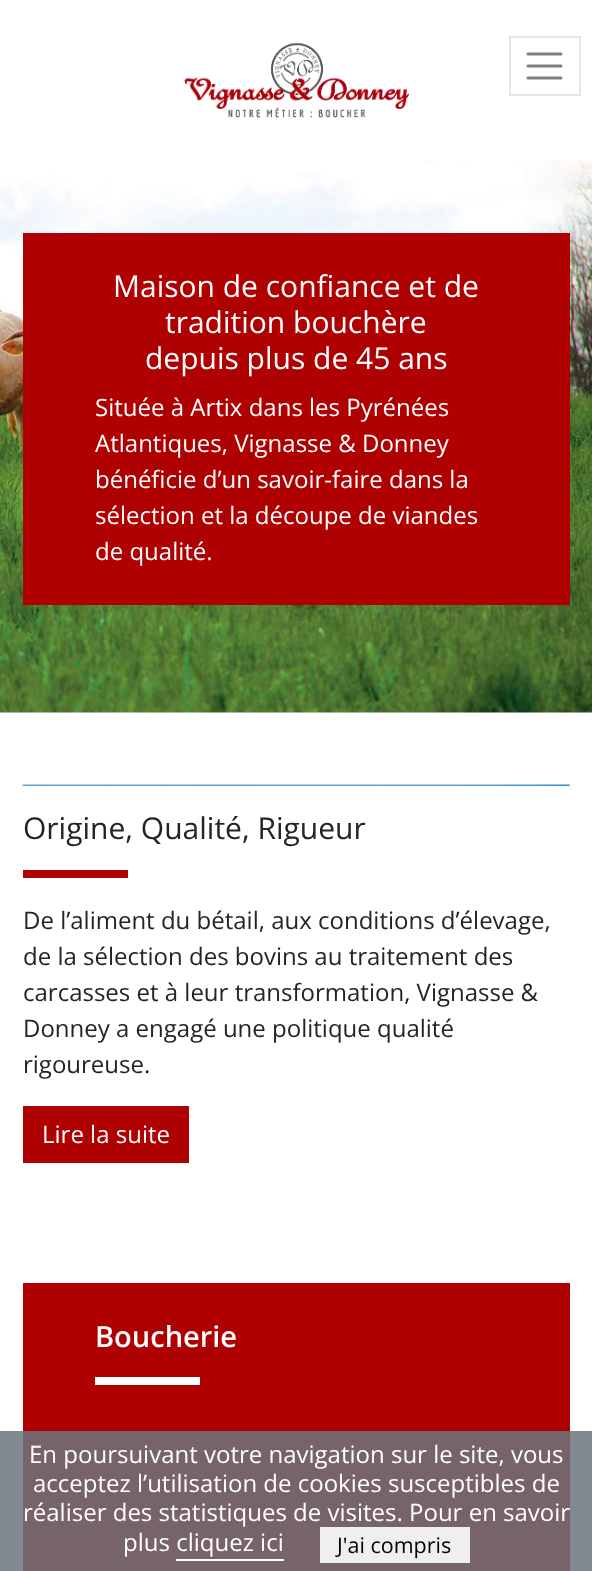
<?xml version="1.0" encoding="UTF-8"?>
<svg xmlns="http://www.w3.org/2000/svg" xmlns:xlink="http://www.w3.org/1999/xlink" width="592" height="1571">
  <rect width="100%" height="100%" fill="#ffffff" />
  <image x="184" y="42" width="226" height="76" xlink:href="image1.png" />
  <rect x="510" y="37" width="70" height="58" fill="none" stroke="#e6e6e6" stroke-width="2" />
  <path d="M 528 54 h 33 m -33 12 h 33 m -33 12 h 33" fill="none" stroke="#808080" stroke-width="3" stroke-linecap="round" />
  <image x="0" y="160" width="592" height="553" xlink:href="image2.png" />
  <rect x="23" y="233" width="547" height="372" fill="#af0002" />
  <image x="22" y="784" width="548" height="2" xlink:href="image3.png" />
  <rect x="23" y="870" width="105" height="8" fill="#af0002" />
  <rect x="23" y="1106" width="166" height="57" fill="#af0002" />
  <rect x="23" y="1283" width="547" height="288" fill="#af0002" />
  <rect x="95" y="1377" width="105" height="8" fill="#ffffff" />
  <rect y="1431" width="592" height="140" fill="#6c757d" fill-opacity="0.85" />
  <rect x="320" y="1527" width="150" height="36" fill="#efefef" />
  <rect x="176" y="1559" width="108" height="2" fill="#ffffff" />
  <text x="113" y="297" style="font-family: Open Sans; font-size: 30px; fill: #ffffff">Maison de confiance et de</text>
  <text x="165" y="333" style="font-family: Open Sans; font-size: 30px; fill: #ffffff">tradition bouchère</text>
  <text x="145" y="369" style="font-family: Open Sans; font-size: 30px; fill: #ffffff">depuis plus de 45 ans</text>
  <text x="95" y="416" style="font-family: Open Sans; font-size: 24px; fill: #ffffff">Située à Artix dans les Pyrénées</text>
  <text x="95" y="452" style="font-family: Open Sans; font-size: 24px; fill: #ffffff">Atlantiques, Vignasse &amp; Donney</text>
  <text x="95" y="488" style="font-family: Open Sans; font-size: 24px; fill: #ffffff">bénéficie d’un savoir-faire dans la</text>
  <text x="95" y="524" style="font-family: Open Sans; font-size: 24px; fill: #ffffff">sélection et la découpe de viandes</text>
  <text x="95" y="560" style="font-family: Open Sans; font-size: 24px; fill: #ffffff">de qualité.</text>
  <text x="23" y="839" style="font-family: Open Sans; font-size: 30px; fill: #212529">Origine, Qualité, Rigueur</text>
  <text x="23" y="929" style="font-family: Open Sans; font-size: 24px; fill: #212529">De l’aliment du bétail, aux conditions d’élevage,</text>
  <text x="23" y="965" style="font-family: Open Sans; font-size: 24px; fill: #212529">de la sélection des bovins au traitement des</text>
  <text x="23" y="1001" style="font-family: Open Sans; font-size: 24px; fill: #212529">carcasses et à leur transformation, Vignasse &amp;</text>
  <text x="23" y="1037" style="font-family: Open Sans; font-size: 24px; fill: #212529">Donney a engagé une politique qualité</text>
  <text x="23" y="1073" style="font-family: Open Sans; font-size: 24px; fill: #212529">rigoureuse.</text>
  <text x="42" y="1143" style="font-family: Open Sans; font-size: 24px; fill: #ffffff">Lire la suite</text>
  <text x="95" y="1347" style="font-family: Open Sans; font-size: 29px; font-weight: 600; fill: #ffffff">Boucherie</text>
  <text x="29" y="1463" style="font-family: Open Sans; font-size: 24px; fill: #ffffff">En poursuivant votre navigation sur le site, vous</text>
  <text x="33" y="1492" style="font-family: Open Sans; font-size: 24px; fill: #ffffff">acceptez l’utilisation de cookies susceptibles de</text>
  <text x="23" y="1521" style="font-family: Open Sans; font-size: 24px; fill: #ffffff">réaliser des statistiques de visites. Pour en savoir</text>
  <text x="123" y="1551" style="font-family: Open Sans; font-size: 24px; fill: #ffffff">plus cliquez ici</text>
  <text x="337" y="1553" style="font-family: Open Sans; font-size: 21.5px; fill: #000000">J'ai compris</text>
</svg>
